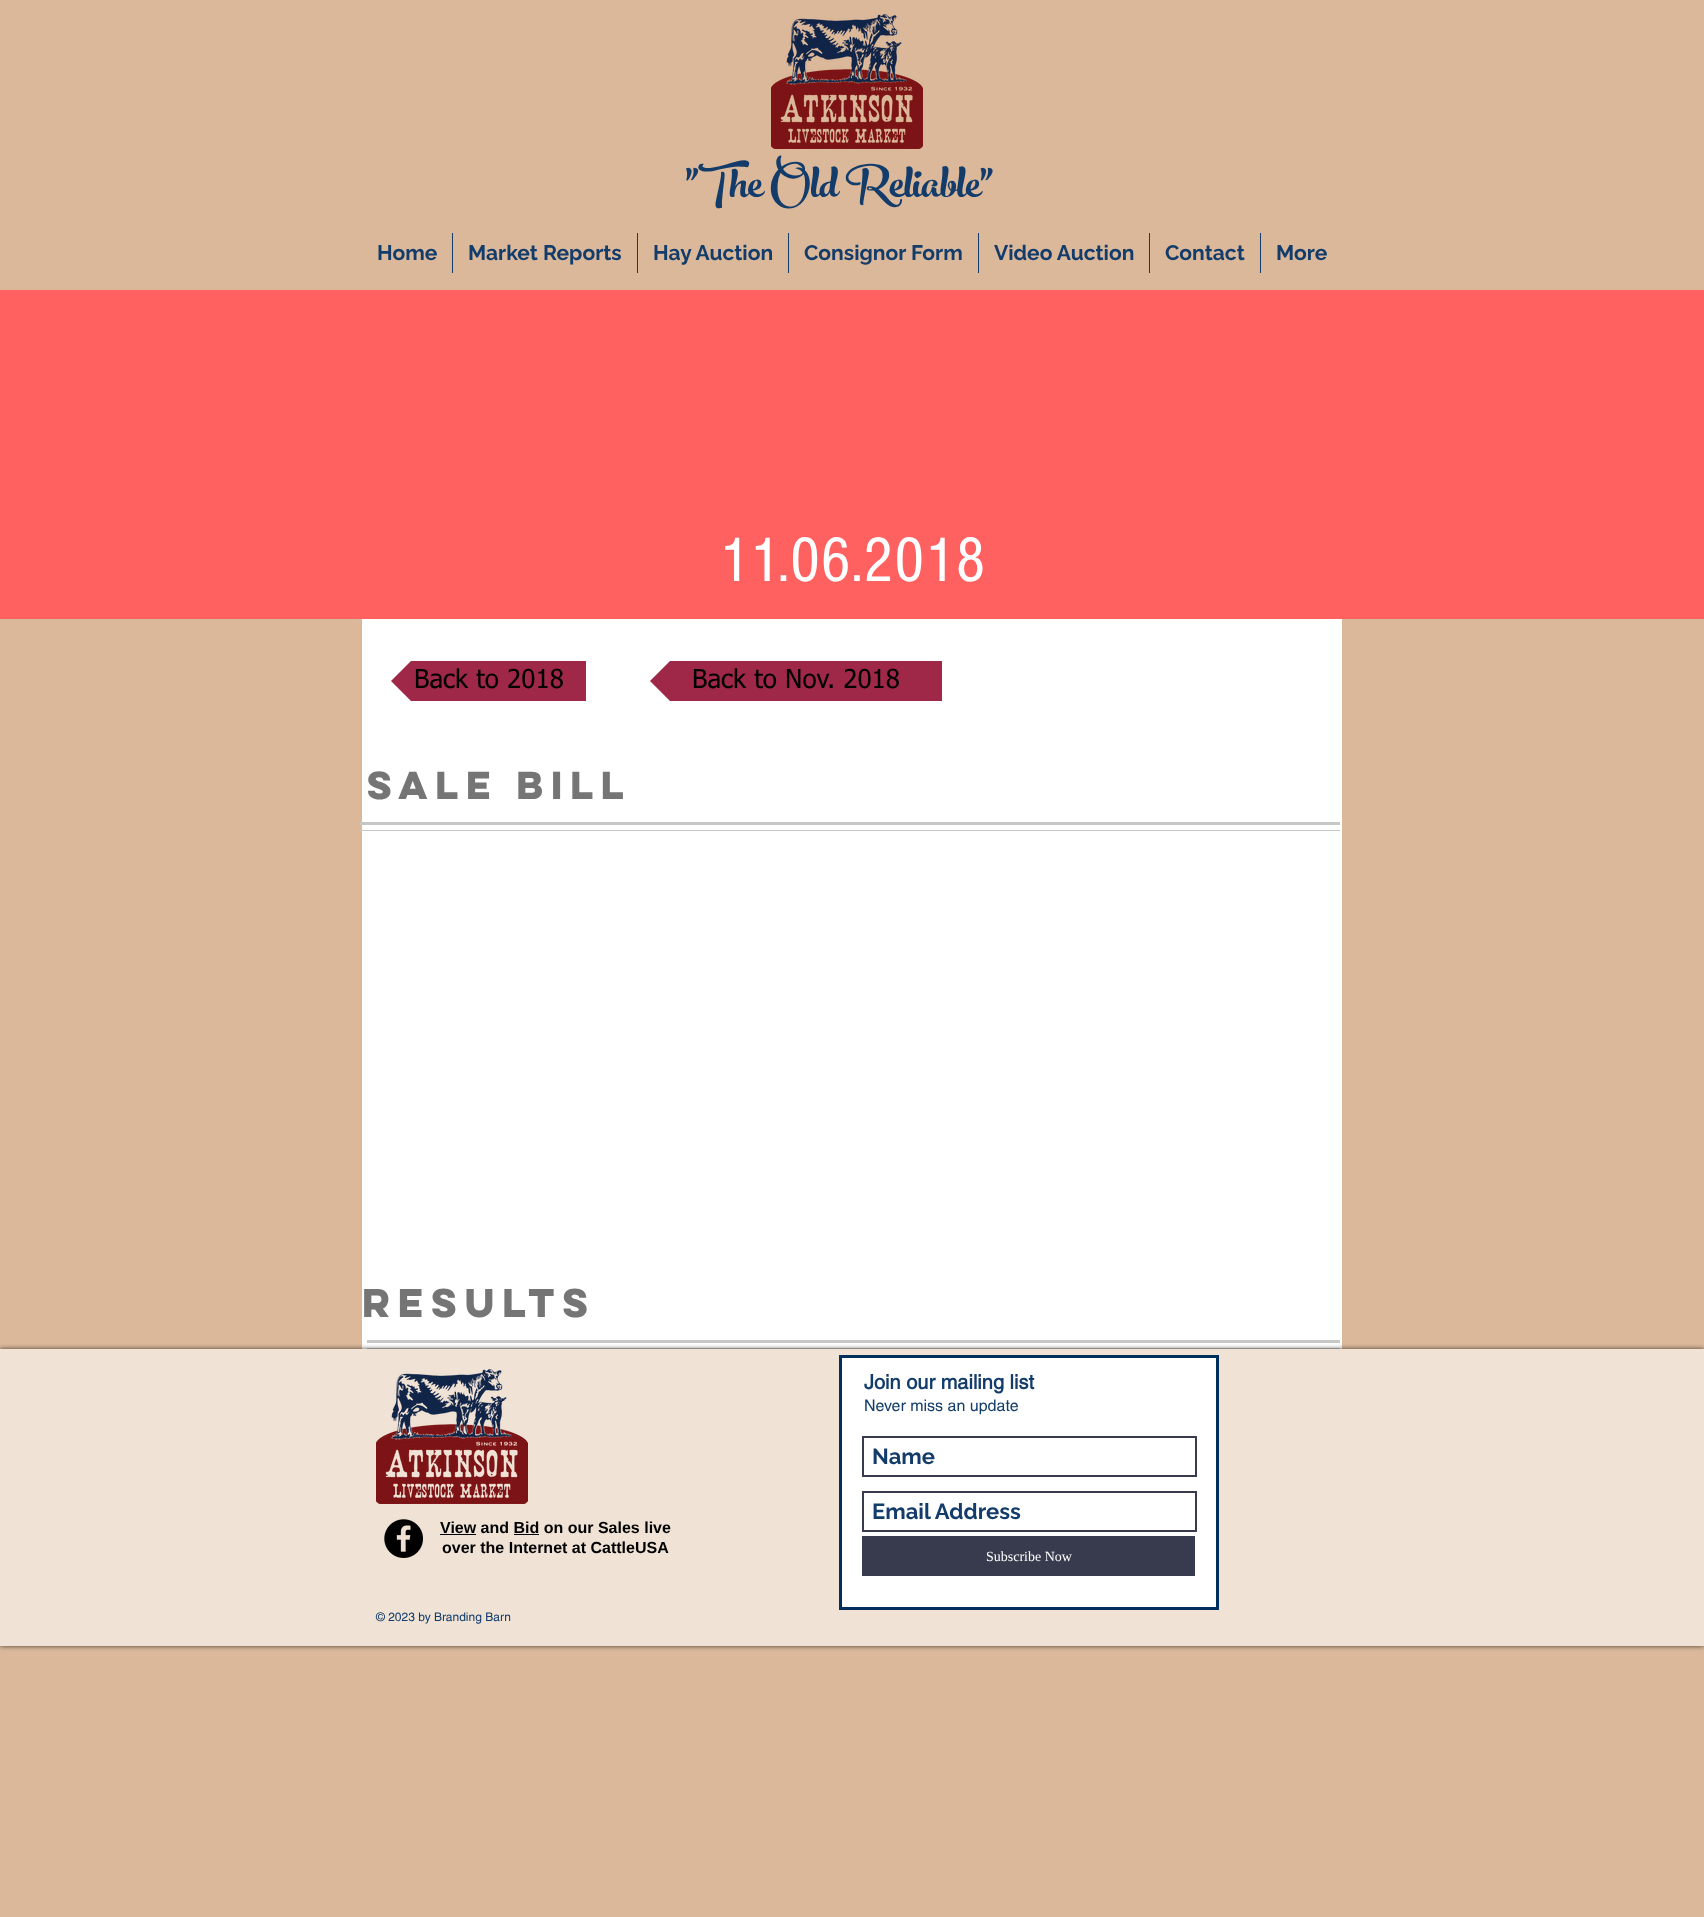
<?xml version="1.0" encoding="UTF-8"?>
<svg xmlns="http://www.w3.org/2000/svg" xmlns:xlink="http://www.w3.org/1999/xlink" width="1704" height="1917">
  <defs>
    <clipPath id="clip1"><rect x="391" y="661" width="195" height="40" /></clipPath>
    <clipPath id="clip2"><rect x="650" y="661" width="292" height="40" /></clipPath>
  </defs>
  <rect width="100%" height="100%" fill="#dbb89a" />
  <image x="771" y="14" width="152" height="135" xlink:href="image1.png" />
  <rect x="452" y="233" width="1" height="40" fill="#133c6b" />
  <rect x="637" y="233" width="1" height="40" fill="#133c6b" />
  <rect x="788" y="233" width="1" height="40" fill="#133c6b" />
  <rect x="978" y="233" width="1" height="40" fill="#133c6b" />
  <rect x="1149" y="233" width="1" height="40" fill="#133c6b" />
  <rect x="1260" y="233" width="1" height="40" fill="#133c6b" />
  <rect y="290" width="1704" height="329" fill="#ff6161" />
  <rect x="362" y="619" width="980" height="730" fill="#ffffff" />
  <g clip-path="url(#clip1)">
    <path d="M 441 681 h -50 l 50 -50 z m -50 0 h 50 v 50 z" fill="#9f2747" />
  </g>
  <rect x="441" y="661" width="145" height="40" fill="#9f2747" />
  <g clip-path="url(#clip2)">
    <path d="M 700 681 h -50 l 50 -50 z m -50 0 h 50 v 50 z" fill="#9f2747" />
  </g>
  <rect x="700" y="661" width="242" height="40" fill="#9f2747" />
  <rect x="360" y="822" width="980" height="3" fill="#c7c7c7" />
  <rect x="360" y="830" width="980" height="1" fill="#c7c7c7" />
  <rect x="367" y="1340" width="973" height="3" fill="#c7c7c7" />
  <rect x="367" y="1348" width="973" height="1" fill="#c7c7c7" />
  <rect y="1349" width="1704" height="297" fill="#000000" fill-opacity="0.7" filter="blur(2.5px)" />
  <rect y="1349" width="1704" height="297" fill="#f0e3d6" />
  <image x="376" y="1369" width="152" height="135" xlink:href="image2.png" />
  <rect x="840.5" y="1356.5" width="377" height="252" fill="#ffffff" stroke="#002e5d" stroke-width="3" />
  <rect x="863" y="1437" width="333" height="39" fill="none" stroke="#373b4d" stroke-width="2" />
  <rect x="863" y="1492" width="333" height="39" fill="none" stroke="#373b4d" stroke-width="2" />
  <rect x="862" y="1536" width="333" height="40" fill="#373b4d" />
  <image x="384" y="1519" width="39" height="39" xlink:href="image3.png" />
  <rect x="440" y="1534" width="36" height="1" fill="#000000" />
  <rect x="514" y="1534" width="25" height="1" fill="#000000" />
  <text x="686" y="197" style="font-family: 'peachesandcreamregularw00'; font-size: 65px; fill: #133c6b">"The Old Reliable"</text>
  <text x="377" y="260" style="font-family: Raleway; font-size: 21px; font-weight: bold; fill: #133c6b">Home</text>
  <text x="468" y="260" style="font-family: Raleway; font-size: 21px; font-weight: bold; fill: #133c6b">Market Reports</text>
  <text x="653" y="260" style="font-family: Raleway; font-size: 21px; font-weight: bold; fill: #133c6b">Hay Auction</text>
  <text x="804" y="260" style="font-family: Raleway; font-size: 21px; font-weight: bold; fill: #133c6b">Consignor Form</text>
  <text x="994" y="260" style="font-family: Raleway; font-size: 21px; font-weight: bold; fill: #133c6b">Video Auction</text>
  <text x="1165" y="260" style="font-family: Raleway; font-size: 21px; font-weight: bold; fill: #133c6b">Contact</text>
  <text x="1276" y="260" style="font-family: Raleway; font-size: 21px; font-weight: bold; fill: #133c6b">More</text>
  <text x="719" y="581" style="font-family: 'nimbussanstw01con'; font-size: 65px; fill: #ffffff">11.06.2018</text>
  <text x="414" y="688" style="font-family: tahoma; font-size: 26px; fill: #000000">Back to 2018</text>
  <text x="692" y="688" style="font-family: tahoma; font-size: 26px; fill: #000000">Back to Nov. 2018</text>
  <text x="367" y="799" style="font-family: 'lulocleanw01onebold'; font-size: 35px; font-weight: bold; fill: #757575">Sale Bill</text>
  <text x="362" y="1317" style="font-family: 'lulocleanw01onebold'; font-size: 36px; font-weight: bold; fill: #757575">results</text>
  <text x="864" y="1389" style="font-family: helvetica; font-size: 20px; font-weight: bold; fill: #133c6b">Join our mailing list</text>
  <text x="864" y="1411" style="font-family: helvetica; font-size: 16px; fill: #133c6b">Never miss an update</text>
  <text x="872" y="1464" style="font-family: Raleway; font-size: 22px; font-weight: bold; fill: #133c6b">Name</text>
  <text x="872" y="1519" style="font-family: Raleway; font-size: 22px; font-weight: bold; fill: #133c6b">Email Address</text>
  <text x="986" y="1561" style="font-family: Liberation Serif; font-size: 14px; fill: #ffffff">Subscribe Now</text>
  <text x="440" y="1533" style="font-family: Liberation Sans; font-size: 16px; font-weight: bold; fill: #000000">View and Bid on our Sales live</text>
  <text x="442" y="1553" style="font-family: Liberation Sans; font-size: 16px; font-weight: bold; fill: #000000">over the Internet at CattleUSA</text>
  <text x="376" y="1621" style="font-family: helvetica; font-size: 12px; fill: #133c6b">© 2023 by Branding Barn</text>
</svg>
